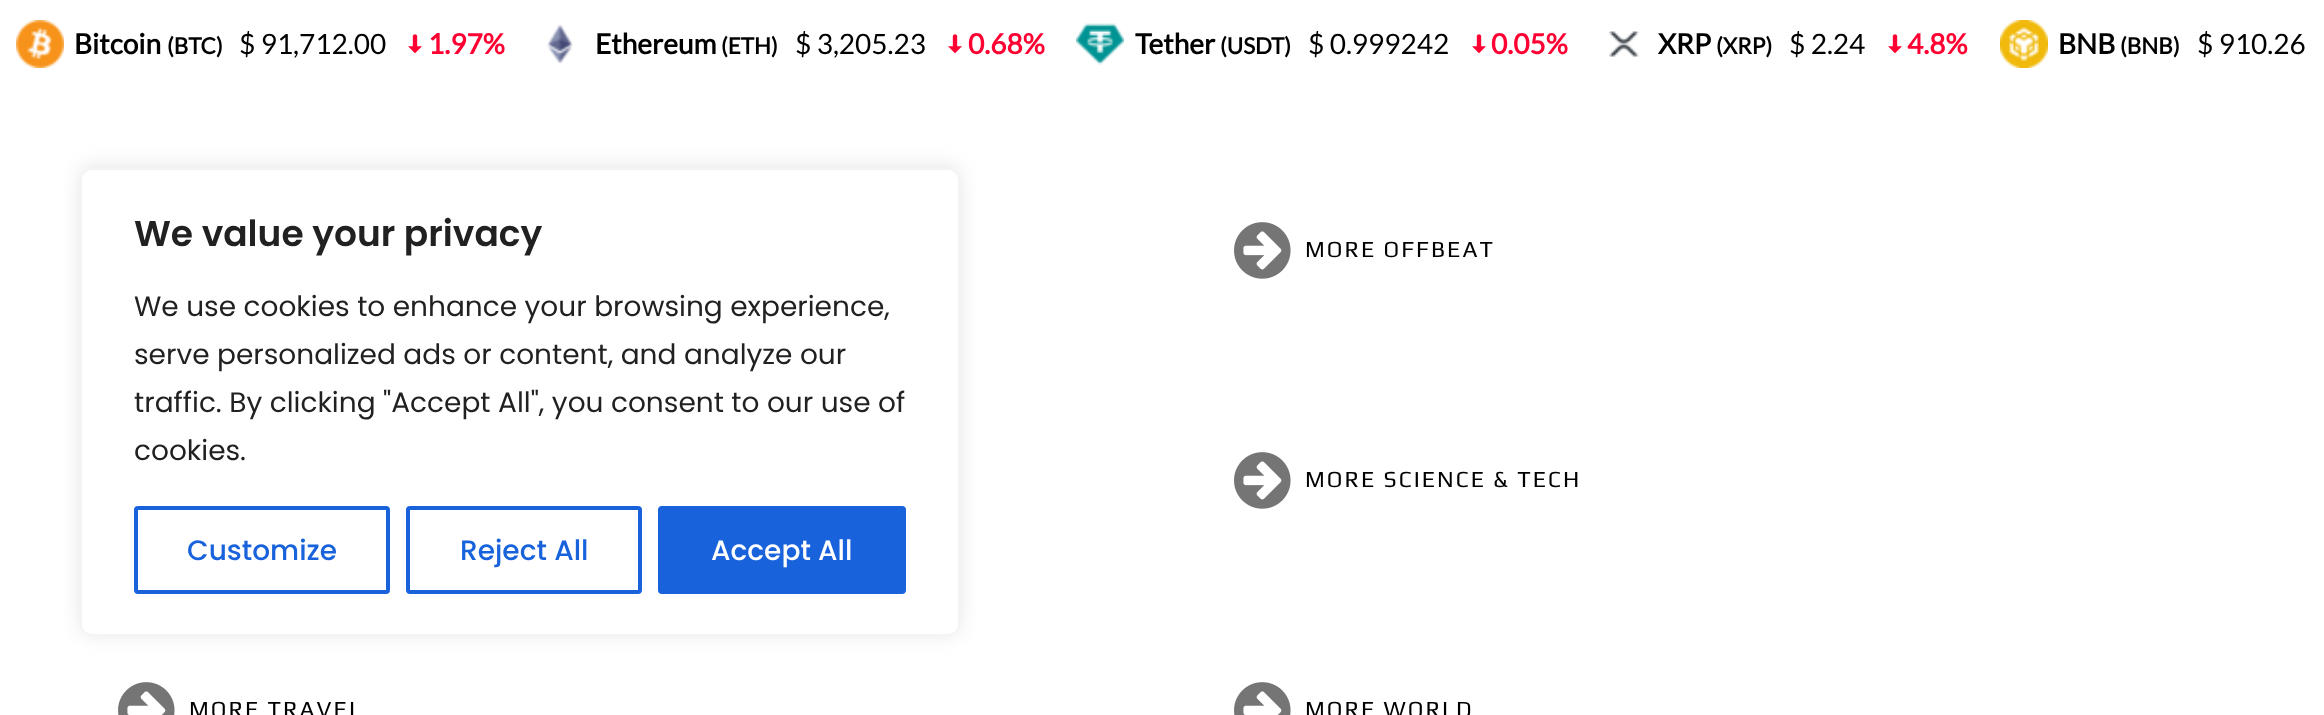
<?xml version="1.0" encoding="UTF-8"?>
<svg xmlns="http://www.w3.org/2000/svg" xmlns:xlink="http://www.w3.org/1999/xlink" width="2324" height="715">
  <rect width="100%" height="100%" fill="#ffffff" />
  <image x="16" y="20" width="48" height="48" xlink:href="image1.png" />
  <image x="408" y="34" width="14" height="20" xlink:href="image2.png" />
  <image x="547" y="24" width="26" height="40" xlink:href="image3.png" />
  <image x="948" y="34" width="14" height="20" xlink:href="image2.png" />
  <image x="1076" y="23" width="48" height="42" xlink:href="image4.png" />
  <image x="1472" y="34" width="14" height="20" xlink:href="image2.png" />
  <image x="1609" y="31" width="30" height="26" xlink:href="image5.png" />
  <image x="1888" y="34" width="14" height="20" xlink:href="image2.png" />
  <image x="2000" y="20" width="48" height="48" xlink:href="image6.png" />
  <rect x="80" y="166" width="880" height="468" rx="12" fill="#acabab" fill-opacity="0.3" filter="blur(10px)" />
  <rect x="81" y="169" width="878" height="466" rx="11" fill="#ffffff" stroke="#f4f4f4" stroke-width="2" />
  <rect x="136" y="508" width="252" height="84" rx="2" fill="none" stroke="#1863dc" stroke-width="4" />
  <rect x="408" y="508" width="232" height="84" rx="2" fill="none" stroke="#1863dc" stroke-width="4" />
  <rect x="660" y="508" width="244" height="84" rx="2" fill="#1863dc" stroke="#1863dc" stroke-width="4" />
  <image x="1234" y="222" width="57" height="57" xlink:href="image7.png" />
  <image x="1234" y="452" width="57" height="57" xlink:href="image7.png" />
  <image x="118" y="682" width="57" height="33" xlink:href="image8.png" />
  <image x="1234" y="682" width="57" height="33" xlink:href="image8.png" />
  <text x="74" y="54" style="font-family: Lato; font-size: 28px; font-weight: bold; fill: #000000">Bitcoin</text>
  <text x="167" y="54" style="font-family: Lato; font-size: 22.5px; font-weight: bold; fill: #000000">(BTC)</text>
  <text x="239" y="54" style="font-family: Lato; font-size: 28px; fill: #000000">$ 91,712.00</text>
  <text x="428" y="54" style="font-family: Lato; font-size: 28px; font-weight: bold; fill: #ff0033">1.97%</text>
  <text x="595" y="54" style="font-family: Lato; font-size: 28px; font-weight: bold; fill: #000000">Ethereum</text>
  <text x="721" y="54" style="font-family: Lato; font-size: 22.5px; font-weight: bold; fill: #000000">(ETH)</text>
  <text x="795" y="54" style="font-family: Lato; font-size: 28px; fill: #000000">$ 3,205.23</text>
  <text x="968" y="54" style="font-family: Lato; font-size: 28px; font-weight: bold; fill: #ff0033">0.68%</text>
  <text x="1135" y="54" style="font-family: Lato; font-size: 28px; font-weight: bold; fill: #000000">Tether</text>
  <text x="1220" y="54" style="font-family: Lato; font-size: 22.5px; font-weight: bold; fill: #000000">(USDT)</text>
  <text x="1308" y="54" style="font-family: Lato; font-size: 28px; fill: #000000">$ 0.999242</text>
  <text x="1491" y="54" style="font-family: Lato; font-size: 28px; font-weight: bold; fill: #ff0033">0.05%</text>
  <text x="1658" y="54" style="font-family: Lato; font-size: 28px; font-weight: bold; fill: #000000">XRP</text>
  <text x="1716" y="54" style="font-family: Lato; font-size: 22.5px; font-weight: bold; fill: #000000">(XRP)</text>
  <text x="1789" y="54" style="font-family: Lato; font-size: 28px; fill: #000000">$ 2.24</text>
  <text x="1907" y="54" style="font-family: Lato; font-size: 28px; font-weight: bold; fill: #ff0033">4.8%</text>
  <text x="2058" y="54" style="font-family: Lato; font-size: 28px; font-weight: bold; fill: #000000">BNB</text>
  <text x="2120" y="54" style="font-family: Lato; font-size: 22.5px; font-weight: bold; fill: #000000">(BNB)</text>
  <text x="2197" y="54" style="font-family: Lato; font-size: 28px; fill: #000000">$ 910.26</text>
  <text x="134" y="246" style="font-family: Poppins; font-size: 36px; font-weight: 600; fill: #212121">We value your privacy</text>
  <text x="134" y="316" style="font-family: Poppins; font-size: 28px; fill: #212121">We use cookies to enhance your browsing experience,</text>
  <text x="134" y="364" style="font-family: Poppins; font-size: 28px; fill: #212121">serve personalized ads or content, and analyze our</text>
  <text x="134" y="412" style="font-family: Poppins; font-size: 28px; fill: #212121">traffic. By clicking "Accept All", you consent to our use of</text>
  <text x="134" y="460" style="font-family: Poppins; font-size: 28px; fill: #212121">cookies.</text>
  <text x="187" y="560" style="font-family: Poppins; font-size: 28px; font-weight: 500; fill: #1863dc">Customize</text>
  <text x="460" y="560" style="font-family: Poppins; font-size: 28px; font-weight: 500; fill: #1863dc">Reject All</text>
  <text x="711" y="560" style="font-family: Poppins; font-size: 28px; font-weight: 500; fill: #ffffff">Accept All</text>
  <text x="1305" y="257" style="font-family: Play; font-size: 23px; letter-spacing: 2px; fill: #000000">MORE OFFBEAT</text>
  <text x="1305" y="487" style="font-family: Play; font-size: 23px; letter-spacing: 2px; fill: #000000">MORE SCIENCE &amp; TECH</text>
  <text x="189" y="717" style="font-family: Play; font-size: 23px; letter-spacing: 2px; fill: #000000">MORE TRAVEL</text>
  <text x="1305" y="717" style="font-family: Play; font-size: 23px; letter-spacing: 2px; fill: #000000">MORE WORLD</text>
</svg>
